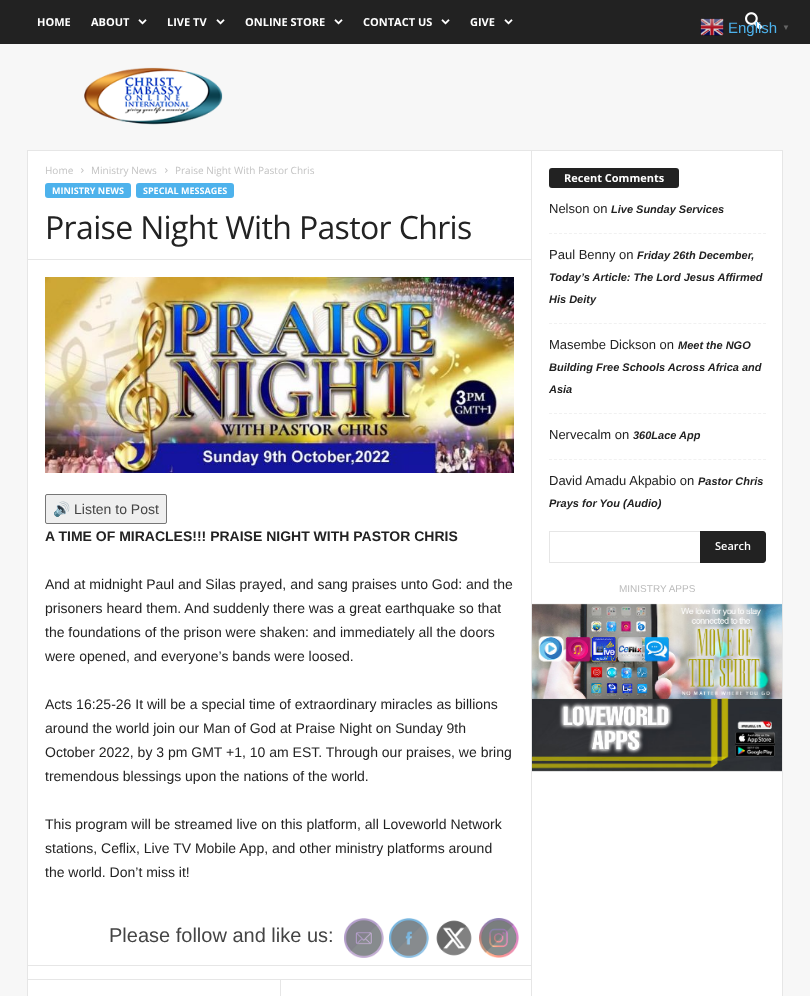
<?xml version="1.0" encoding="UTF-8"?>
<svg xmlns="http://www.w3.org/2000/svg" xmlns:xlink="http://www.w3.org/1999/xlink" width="810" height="996">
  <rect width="100%" height="100%" fill="#f7f7f7" />
  <rect width="810" height="44" fill="#222222" />
  <image x="138" y="19" width="9" height="6" xlink:href="image1.png" />
  <image x="216" y="19" width="9" height="6" xlink:href="image1.png" />
  <image x="334" y="19" width="9" height="6" xlink:href="image1.png" />
  <image x="441" y="19" width="9" height="6" xlink:href="image1.png" />
  <image x="504" y="19" width="9" height="6" xlink:href="image1.png" />
  <image x="745" y="12" width="17" height="18" xlink:href="image2.png" />
  <rect x="27" y="150" width="756" height="1" fill="#e6e6e6" />
  <image x="84" y="67" width="139" height="58" xlink:href="image3.png" />
  <rect x="28" y="151" width="754" height="845" fill="#ffffff" />
  <rect x="27" y="151" width="1" height="845" fill="#e6e6e6" />
  <image x="81" y="168" width="3" height="5" xlink:href="image4.png" />
  <image x="165" y="168" width="3" height="5" xlink:href="image4.png" />
  <rect x="45" y="183" width="86" height="15" rx="3" fill="#4db2ec" />
  <rect x="136" y="183" width="98" height="15" rx="3" fill="#4db2ec" />
  <rect x="28" y="259" width="503" height="1" fill="#e6e6e6" />
  <image x="45" y="277" width="469" height="196" xlink:href="image5.png" />
  <rect x="45.5" y="494.5" width="121" height="29" rx="1.5" fill="#efefef" stroke="#767676" />
  <image x="344" y="918" width="40" height="40" xlink:href="image6.png" />
  <image x="389" y="918" width="40" height="40" xlink:href="image7.png" />
  <image x="436" y="920" width="36" height="36" xlink:href="image8.png" />
  <image x="479" y="918" width="40" height="40" xlink:href="image9.png" />
  <rect x="28" y="965" width="503" height="1" fill="#e6e6e6" />
  <rect x="28" y="979" width="503" height="1" fill="#e6e6e6" />
  <rect x="280" y="980" width="1" height="16" fill="#e6e6e6" />
  <rect x="531" y="151" width="1" height="845" fill="#e6e6e6" />
  <rect x="549" y="168" width="130" height="20" rx="3" fill="#222222" />
  <path d="M 549 233.5 h 217" fill="none" stroke="#f1f1f1" stroke-dasharray="3 1.98" />
  <path d="M 549 323.5 h 217" fill="none" stroke="#f1f1f1" stroke-dasharray="3 1.98" />
  <path d="M 549 413.5 h 217" fill="none" stroke="#f1f1f1" stroke-dasharray="3 1.98" />
  <path d="M 549 459.5 h 217" fill="none" stroke="#f1f1f1" stroke-dasharray="3 1.98" />
  <rect x="549" y="531" width="151" height="1" fill="#e6e6e6" />
  <rect x="549" y="562" width="151" height="1" fill="#e6e6e6" />
  <rect x="549" y="531" width="1" height="32" fill="#e6e6e6" />
  <path d="M 700 531 h 63 c 1.5 0 3 1.5 3 3 v 26 c 0 1.5 -1.5 3 -3 3 h -63 z" fill="#222222" />
  <image x="532" y="603" width="250" height="169" xlink:href="image10.png" />
  <rect x="782" y="151" width="1" height="845" fill="#e6e6e6" />
  <image x="700" y="18" width="24" height="18" xlink:href="image11.png" />
  <text x="37" y="26" style="font-family: Open Sans; font-size: 11px; font-weight: bold; fill: #ffffff">HOME</text>
  <text x="91" y="26" style="font-family: Open Sans; font-size: 11px; font-weight: bold; fill: #ffffff">ABOUT</text>
  <text x="167" y="26" style="font-family: Open Sans; font-size: 11px; font-weight: bold; fill: #ffffff">LIVE TV</text>
  <text x="245" y="26" style="font-family: Open Sans; font-size: 11px; font-weight: bold; fill: #ffffff">ONLINE STORE</text>
  <text x="363" y="26" style="font-family: Open Sans; font-size: 11px; font-weight: bold; fill: #ffffff">CONTACT US</text>
  <text x="470" y="26" style="font-family: Open Sans; font-size: 11px; font-weight: bold; fill: #ffffff">GIVE</text>
  <text x="45" y="174" style="font-family: Open Sans; font-size: 10px; fill: #c3c3c3">Home</text>
  <text x="91" y="174" style="font-family: Open Sans; font-size: 10px; fill: #c3c3c3">Ministry News</text>
  <text x="175" y="174" style="font-family: Open Sans; font-size: 10px; fill: #c3c3c3">Praise Night With Pastor Chris</text>
  <text x="52" y="194" style="font-family: Open Sans; font-size: 9px; font-weight: bold; fill: #ffffff">MINISTRY NEWS</text>
  <text x="143" y="194" style="font-family: Open Sans; font-size: 9px; font-weight: bold; fill: #ffffff">SPECIAL MESSAGES</text>
  <text x="45" y="239" style="font-family: Open Sans; font-size: 32px; letter-spacing: -0.65px; fill: #222222">Praise Night With Pastor Chris</text>
  <text x="53" y="514" style="font-family: Noto Color Emoji; font-size: 14px; fill: #444444">🔊</text>
  <text x="74" y="514" style="font-family: Liberation Sans; font-size: 14px; fill: #444444">Listen to Post</text>
  <text x="45" y="541" style="font-family: Liberation Sans; font-size: 14px; font-weight: bold; fill: #222222">A TIME OF MIRACLES!!! PRAISE NIGHT WITH PASTOR CHRIS</text>
  <text x="45" y="589" style="font-family: Liberation Sans; font-size: 14px; fill: #222222">And at midnight Paul and Silas prayed, and sang praises unto God: and the</text>
  <text x="45" y="613" style="font-family: Liberation Sans; font-size: 14px; fill: #222222">prisoners heard them. And suddenly there was a great earthquake so that</text>
  <text x="45" y="637" style="font-family: Liberation Sans; font-size: 14px; fill: #222222">the foundations of the prison were shaken: and immediately all the doors</text>
  <text x="45" y="661" style="font-family: Liberation Sans; font-size: 14px; fill: #222222">were opened, and everyone’s bands were loosed.</text>
  <text x="45" y="709" style="font-family: Liberation Sans; font-size: 14px; fill: #222222">Acts 16:25-26 It will be a special time of extraordinary miracles as billions</text>
  <text x="45" y="733" style="font-family: Liberation Sans; font-size: 14px; fill: #222222">around the world join our Man of God at Praise Night on Sunday 9th</text>
  <text x="45" y="757" style="font-family: Liberation Sans; font-size: 14px; fill: #222222">October 2022, by 3 pm GMT +1, 10 am EST. Through our praises, we bring</text>
  <text x="45" y="781" style="font-family: Liberation Sans; font-size: 14px; fill: #222222">tremendous blessings upon the nations of the world.</text>
  <text x="45" y="829" style="font-family: Liberation Sans; font-size: 14px; fill: #222222">This program will be streamed live on this platform, all Loveworld Network</text>
  <text x="45" y="853" style="font-family: Liberation Sans; font-size: 14px; fill: #222222">stations, Ceflix, Live TV Mobile App, and other ministry platforms around</text>
  <text x="45" y="877" style="font-family: Liberation Sans; font-size: 14px; fill: #222222">the world. Don’t miss it!</text>
  <text x="109" y="942" style="font-family: Liberation Sans; font-size: 20px; fill: #444444">Please follow and like us:</text>
  <text x="564" y="182" style="font-family: Open Sans; font-size: 11px; font-weight: bold; fill: #ffffff">Recent Comments</text>
  <text x="549" y="213" style="font-family: Liberation Sans; font-size: 13px; fill: #222222">Nelson on</text>
  <text x="611" y="213" style="font-family: Liberation Sans; font-size: 11px; font-weight: bold; font-style: italic; fill: #222222">Live Sunday Services</text>
  <text x="549" y="259" style="font-family: Liberation Sans; font-size: 13px; fill: #222222">Paul Benny on</text>
  <text x="637" y="259" style="font-family: Liberation Sans; font-size: 11px; font-weight: bold; font-style: italic; fill: #222222">Friday 26th December,</text>
  <text x="549" y="281" style="font-family: Liberation Sans; font-size: 11px; font-weight: bold; font-style: italic; fill: #222222">Today’s Article: The Lord Jesus Affirmed</text>
  <text x="549" y="303" style="font-family: Liberation Sans; font-size: 11px; font-weight: bold; font-style: italic; fill: #222222">His Deity</text>
  <text x="549" y="349" style="font-family: Liberation Sans; font-size: 13px; fill: #222222">Masembe Dickson on</text>
  <text x="678" y="349" style="font-family: Liberation Sans; font-size: 11px; font-weight: bold; font-style: italic; fill: #222222">Meet the NGO</text>
  <text x="549" y="371" style="font-family: Liberation Sans; font-size: 11px; font-weight: bold; font-style: italic; fill: #222222">Building Free Schools Across Africa and</text>
  <text x="549" y="393" style="font-family: Liberation Sans; font-size: 11px; font-weight: bold; font-style: italic; fill: #222222">Asia</text>
  <text x="549" y="439" style="font-family: Liberation Sans; font-size: 13px; fill: #222222">Nervecalm on</text>
  <text x="633" y="439" style="font-family: Liberation Sans; font-size: 11px; font-weight: bold; font-style: italic; fill: #222222">360Lace App</text>
  <text x="549" y="485" style="font-family: Liberation Sans; font-size: 13px; fill: #222222">David Amadu Akpabio on</text>
  <text x="698" y="485" style="font-family: Liberation Sans; font-size: 11px; font-weight: bold; font-style: italic; fill: #222222">Pastor Chris</text>
  <text x="549" y="507" style="font-family: Liberation Sans; font-size: 11px; font-weight: bold; font-style: italic; fill: #222222">Prays for You (Audio)</text>
  <text x="715" y="550" style="font-family: Open Sans; font-size: 11px; font-weight: 600; fill: #ffffff">Search</text>
  <text x="619" y="592" style="font-family: Liberation Sans; font-size: 10px; fill: #bbbbbb">MINISTRY APPS</text>
  <text x="728" y="33" style="font-family: Liberation Sans; font-size: 15px; fill: #4db2ec">English</text>
  <text x="782" y="30" style="font-family: Liberation Sans; font-size: 8px; font-weight: bold; fill: #666666">▼</text>
</svg>
